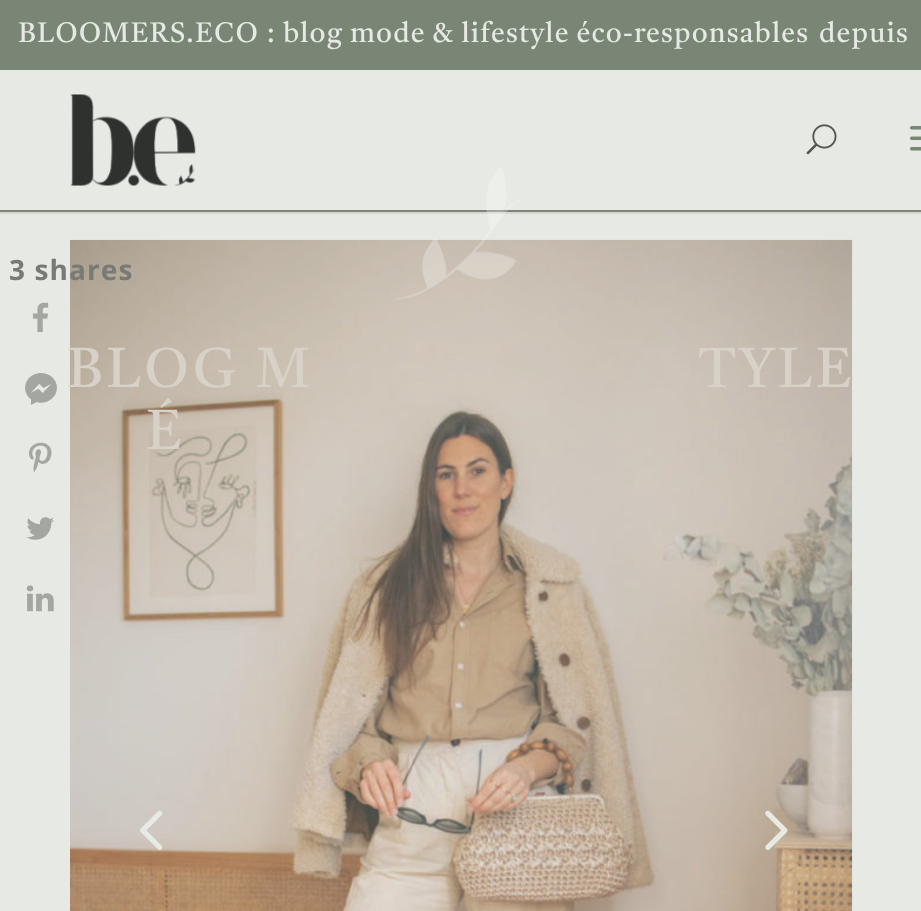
<?xml version="1.0" encoding="UTF-8"?>
<svg xmlns="http://www.w3.org/2000/svg" xmlns:xlink="http://www.w3.org/1999/xlink" width="921" height="911">
  <rect width="100%" height="100%" fill="#e6e9e4" />
  <rect y="212" width="921" height="2" fill="#d4d7d2" />
  <rect y="210" width="921" height="2" fill="#798675" />
  <rect width="921" height="70" fill="#798675" />
  <image x="70" y="94" width="126" height="92" xlink:href="image1.png" />
  <image x="806" y="124" width="31" height="31" xlink:href="image2.png" />
  <image x="910" y="126" width="11" height="25" xlink:href="image3.png" />
  <image x="70" y="239" width="783" height="672" xlink:href="image4.png" />
  <image x="140" y="810" width="23" height="40" xlink:href="image5.png" />
  <image x="765" y="810" width="23" height="40" xlink:href="image6.png" />
  <image x="32" y="302" width="17" height="30" xlink:href="image7.png" />
  <image x="29" y="442" width="23" height="30" xlink:href="image8.png" />
  <image x="26" y="517" width="28" height="23" xlink:href="image9.png" />
  <image x="26" y="585" width="28" height="27" xlink:href="image10.png" />
  <image x="394" y="167" width="126" height="133" xlink:href="image11.png" />
  <text x="18" y="42" style="font-family: Castoro; font-size: 28px; letter-spacing: 1.1px; fill: #e6e9e4">BLOOMERS.ECO :</text>
  <text x="283" y="42" word-spacing="-0.5" style="font-family: Castoro; font-size: 28px; letter-spacing: 1.1px; fill: #e6e9e4">blog mode &amp; lifestyle éco-responsables</text>
  <text x="819" y="42" style="font-family: Castoro; font-size: 28px; letter-spacing: 1.1px; fill: #e6e9e4">depuis</text>
  <text x="9" y="280" style="font-family: Open Sans; font-size: 28px; font-weight: bold; letter-spacing: 1.1px; fill: #787a76">3 shares</text>
  <text x="25" y="405" style="font-family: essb; font-size: 32px; letter-spacing: 1.1px; fill: #a3a6a1">*</text>
  <text x="67" y="387" style="font-family: Castoro; font-size: 56px; letter-spacing: 3.5px; fill: #d8d1c8">BLOG M</text>
  <text x="698" y="387" style="font-family: Castoro; font-size: 56px; letter-spacing: 3.5px; fill: #d8d1c8">TYLE</text>
  <text x="146" y="449" style="font-family: Castoro; font-size: 56px; letter-spacing: 3.5px; fill: #d8d1c8">É</text>
</svg>
